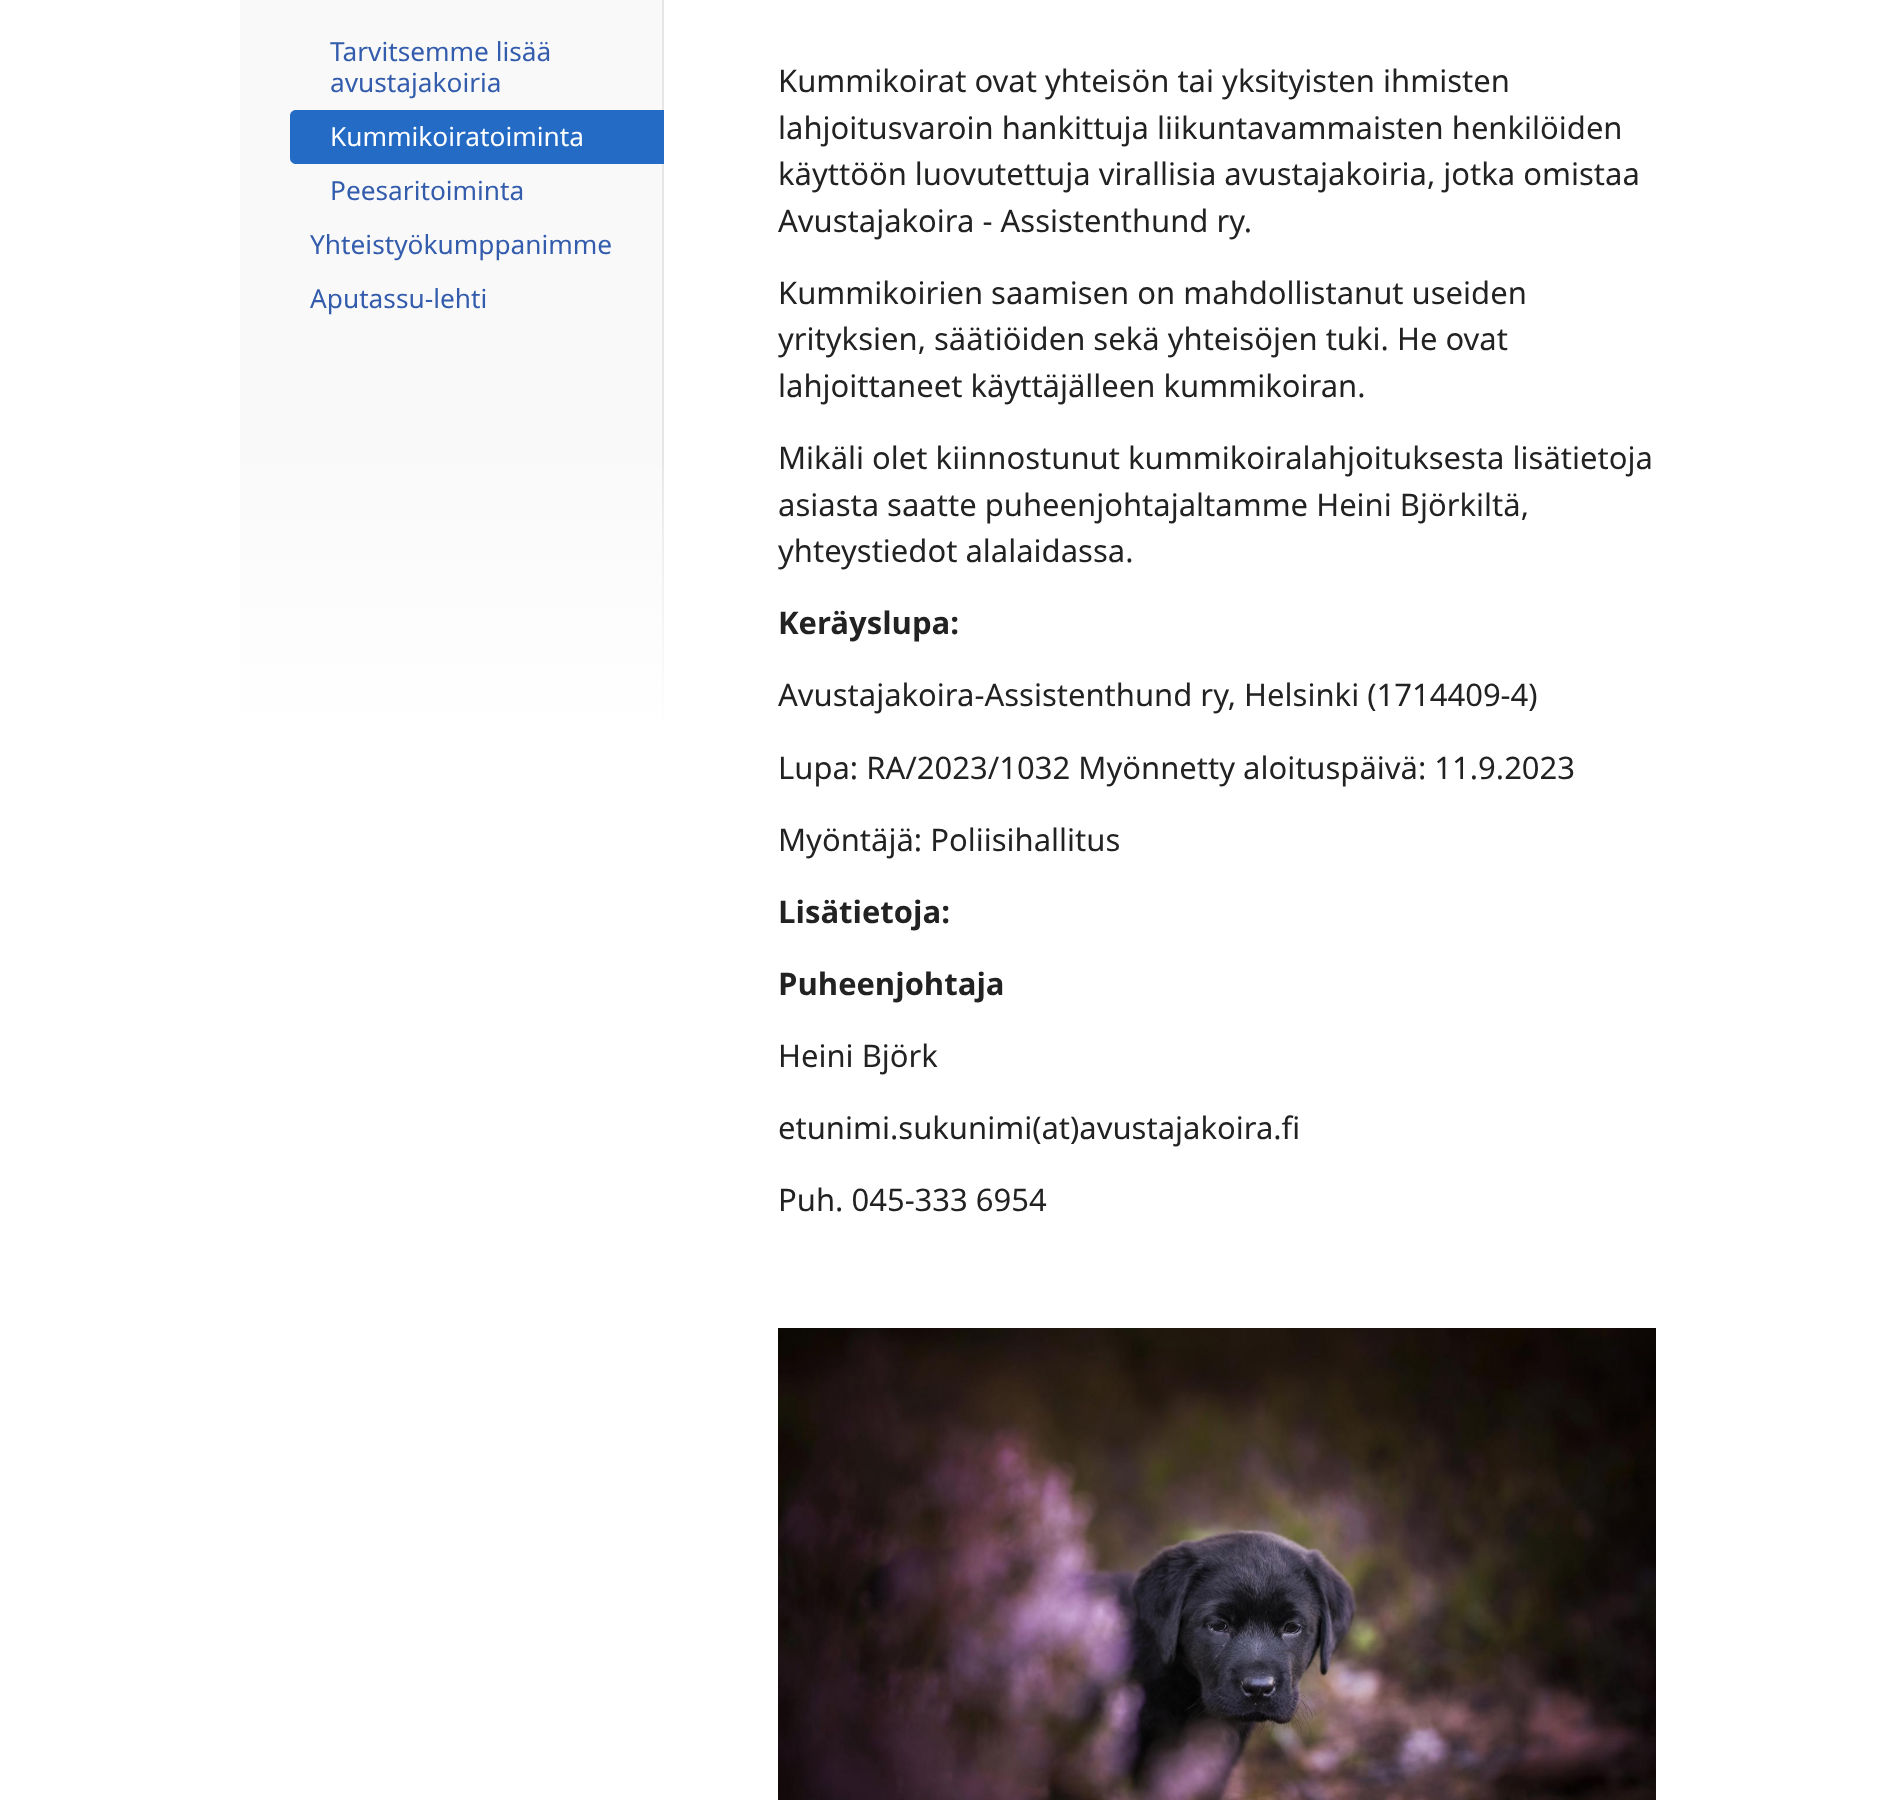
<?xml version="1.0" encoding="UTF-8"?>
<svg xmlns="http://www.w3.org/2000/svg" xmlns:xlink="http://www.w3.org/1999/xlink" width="1895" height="1800">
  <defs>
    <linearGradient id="g1" gradientUnits="userSpaceOnUse" x1="452" y1="438" x2="452" y2="738"><stop offset="0" stop-color="#ffffff" stop-opacity="0" /><stop offset="1" stop-color="#ffffff" /></linearGradient>
  </defs>
  <rect width="100%" height="100%" fill="#ffffff" />
  <rect x="240" width="422" height="736" fill="#f9f9f9" />
  <rect x="662" width="2" height="738" fill="#e6e6e6" />
  <path d="M 296 110 h 368 v 54 h -368 c -3.5 0 -6 -2.5 -6 -6 v -42 c 0 -3.5 2.5 -6 6 -6 z" fill="#246bc6" />
  <rect x="240" y="469" width="424" height="269" fill="url(#g1)" />
  <image x="778" y="1328" width="878" height="472" xlink:href="image1.png" />
  <text x="330" y="61" style="font-family: Noto Sans; font-size: 26.25px; fill: #335cad">Tarvitsemme lisää</text>
  <text x="330" y="92" style="font-family: Noto Sans; font-size: 26.25px; fill: #335cad">avustajakoiria</text>
  <text x="330" y="146" style="font-family: Noto Sans; font-size: 26.25px; fill: #ffffff">Kummikoiratoiminta</text>
  <text x="330" y="200" style="font-family: Noto Sans; font-size: 26.25px; fill: #335cad">Peesaritoiminta</text>
  <text x="310" y="254" style="font-family: Noto Sans; font-size: 26.25px; fill: #335cad">Yhteistyökumppanimme</text>
  <text x="310" y="308" style="font-family: Noto Sans; font-size: 26.25px; fill: #335cad">Aputassu-lehti</text>
  <text x="778" y="92" style="font-family: Noto Sans; font-size: 31px; fill: #222222">Kummikoirat ovat yhteisön tai yksityisten ihmisten</text>
  <text x="778" y="139" style="font-family: Noto Sans; font-size: 31px; fill: #222222">lahjoitusvaroin hankittuja liikuntavammaisten henkilöiden</text>
  <text x="778" y="185" style="font-family: Noto Sans; font-size: 31px; fill: #222222">käyttöön luovutettuja virallisia avustajakoiria, jotka omistaa</text>
  <text x="778" y="232" style="font-family: Noto Sans; font-size: 31px; fill: #222222">Avustajakoira - Assistenthund ry.</text>
  <text x="778" y="304" style="font-family: Noto Sans; font-size: 31px; fill: #222222">Kummikoirien saamisen on mahdollistanut useiden</text>
  <text x="778" y="350" style="font-family: Noto Sans; font-size: 31px; fill: #222222">yrityksien, säätiöiden sekä yhteisöjen tuki. He ovat</text>
  <text x="778" y="397" style="font-family: Noto Sans; font-size: 31px; fill: #222222">lahjoittaneet käyttäjälleen kummikoiran.</text>
  <text x="778" y="469" style="font-family: Noto Sans; font-size: 31px; fill: #222222">Mikäli olet kiinnostunut kummikoiralahjoituksesta lisätietoja</text>
  <text x="778" y="516" style="font-family: Noto Sans; font-size: 31px; fill: #222222">asiasta saatte puheenjohtajaltamme Heini Björkiltä,</text>
  <text x="778" y="562" style="font-family: Noto Sans; font-size: 31px; fill: #222222">yhteystiedot alalaidassa.</text>
  <text x="778" y="634" style="font-family: Noto Sans; font-size: 31px; font-weight: bold; fill: #222222">Keräyslupa:</text>
  <text x="778" y="706" style="font-family: Noto Sans; font-size: 31px; fill: #222222">Avustajakoira-Assistenthund ry, Helsinki (1714409-4)</text>
  <text x="778" y="779" style="font-family: Noto Sans; font-size: 31px; fill: #222222">Lupa: RA/2023/1032 Myönnetty aloituspäivä: 11.9.2023</text>
  <text x="778" y="851" style="font-family: Noto Sans; font-size: 31px; fill: #222222">Myöntäjä: Poliisihallitus</text>
  <text x="778" y="923" style="font-family: Noto Sans; font-size: 31px; font-weight: bold; fill: #222222">Lisätietoja:</text>
  <text x="778" y="995" style="font-family: Noto Sans; font-size: 31px; font-weight: bold; fill: #222222">Puheenjohtaja</text>
  <text x="778" y="1067" style="font-family: Noto Sans; font-size: 31px; fill: #222222">Heini Björk</text>
  <text x="778" y="1139" style="font-family: Noto Sans; font-size: 31px; fill: #222222">etunimi.sukunimi(at)avustajakoira.fi</text>
  <text x="778" y="1211" style="font-family: Noto Sans; font-size: 31px; fill: #222222">Puh. 045-333 6954</text>
</svg>
